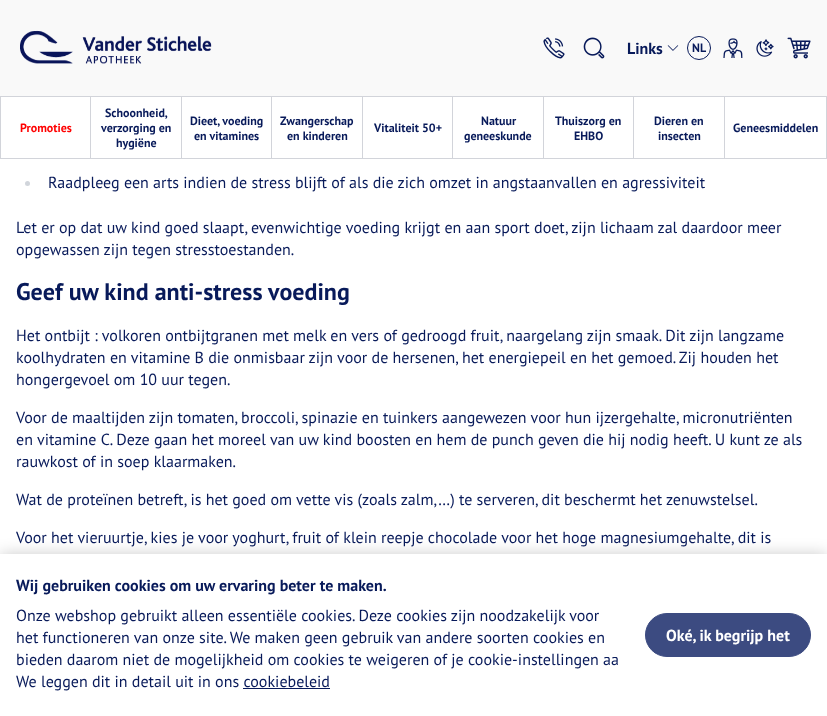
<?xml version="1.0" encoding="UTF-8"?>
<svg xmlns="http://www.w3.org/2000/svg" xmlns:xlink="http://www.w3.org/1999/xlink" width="827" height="716">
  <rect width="100%" height="100%" fill="#ffffff" />
  <rect y="158" width="827" height="1" fill="#d2d4da" />
  <rect width="827" height="96" fill="#f9f9f9" />
  <image x="20" y="30" width="192" height="34" xlink:href="image1.png" />
  <image x="543" y="37" width="22" height="22" xlink:href="image2.png" />
  <image x="583" y="37" width="22" height="22" xlink:href="image3.png" />
  <image x="667" y="45" width="12" height="6" xlink:href="image4.png" />
  <circle cx="699" cy="48" r="11.5" fill="none" stroke="#081a5a" />
  <image x="723" y="38" width="20" height="20" xlink:href="image5.png" />
  <image x="756" y="39" width="18" height="18" xlink:href="image6.png" />
  <image x="787" y="37" width="24" height="22" xlink:href="image7.png" />
  <rect y="96" width="827" height="1" fill="#d2d4da" />
  <rect x="826" y="97" width="1" height="61" fill="#d2d4da" />
  <rect y="97" width="1" height="61" fill="#d2d4da" />
  <rect x="90" y="97" width="1" height="61" fill="#d2d4da" />
  <rect x="181" y="97" width="1" height="61" fill="#d2d4da" />
  <rect x="271" y="97" width="1" height="61" fill="#d2d4da" />
  <rect x="362" y="97" width="1" height="61" fill="#d2d4da" />
  <rect x="452" y="97" width="1" height="61" fill="#d2d4da" />
  <rect x="543" y="97" width="1" height="61" fill="#d2d4da" />
  <rect x="633" y="97" width="1" height="61" fill="#d2d4da" />
  <rect x="724" y="97" width="1" height="61" fill="#d2d4da" />
  <circle cx="27.5" cy="183.5" r="2.5" fill="#d1d5db" />
  <rect y="554" width="827" height="162" fill="#000000" fill-opacity="0.2" filter="blur(7.5px)" />
  <rect y="554" width="827" height="162" fill="#ffffff" />
  <rect x="243" y="688" width="87" height="1" fill="#081a5a" />
  <rect x="645.5" y="613.5" width="165" height="43" rx="21.5" fill="#3c4b81" stroke="#3c4b81" />
  <text x="627" y="54" style="font-family: PT Sans; font-size: 16px; font-weight: bold; fill: #081a5a">Links</text>
  <text x="692" y="52" style="font-family: PT Sans; font-size: 12px; font-weight: bold; fill: #081a5a">NL</text>
  <text x="20" y="132" style="font-family: PT Sans; font-size: 12px; font-weight: bold; fill: #ff0000">Promoties</text>
  <text x="105" y="117" style="font-family: PT Sans; font-size: 12px; font-weight: bold; fill: #081a5a">Schoonheid,</text>
  <text x="101" y="132" style="font-family: PT Sans; font-size: 12px; font-weight: bold; fill: #081a5a">verzorging en</text>
  <text x="116" y="147" style="font-family: PT Sans; font-size: 12px; font-weight: bold; fill: #081a5a">hygiëne</text>
  <text x="190" y="125" style="font-family: PT Sans; font-size: 12px; font-weight: bold; fill: #081a5a">Dieet, voeding</text>
  <text x="194" y="140" style="font-family: PT Sans; font-size: 12px; font-weight: bold; fill: #081a5a">en vitamines</text>
  <text x="280" y="125" style="font-family: PT Sans; font-size: 12px; font-weight: bold; fill: #081a5a">Zwangerschap</text>
  <text x="287" y="140" style="font-family: PT Sans; font-size: 12px; font-weight: bold; fill: #081a5a">en kinderen</text>
  <text x="374" y="132" style="font-family: PT Sans; font-size: 12px; font-weight: bold; fill: #081a5a">Vitaliteit 50+</text>
  <text x="481" y="125" style="font-family: PT Sans; font-size: 12px; font-weight: bold; fill: #081a5a">Natuur</text>
  <text x="464" y="140" style="font-family: PT Sans; font-size: 12px; font-weight: bold; fill: #081a5a">geneeskunde</text>
  <text x="555" y="125" style="font-family: PT Sans; font-size: 12px; font-weight: bold; fill: #081a5a">Thuiszorg en</text>
  <text x="574" y="140" style="font-family: PT Sans; font-size: 12px; font-weight: bold; fill: #081a5a">EHBO</text>
  <text x="654" y="125" style="font-family: PT Sans; font-size: 12px; font-weight: bold; fill: #081a5a">Dieren en</text>
  <text x="658" y="140" style="font-family: PT Sans; font-size: 12px; font-weight: bold; fill: #081a5a">insecten</text>
  <text x="733" y="132" style="font-family: PT Sans; font-size: 12px; font-weight: bold; fill: #081a5a">Geneesmiddelen</text>
  <text x="48" y="188" style="font-family: PT Sans; font-size: 16px; fill: #081a5a">Raadpleeg een arts indien de stress blijft of als die zich omzet in angstaanvallen en agressiviteit</text>
  <text x="16" y="233" style="font-family: PT Sans; font-size: 16px; fill: #081a5a">Let er op dat uw kind goed slaapt, evenwichtige voeding krijgt en aan sport doet, zijn lichaam zal daardoor meer</text>
  <text x="16" y="255" style="font-family: PT Sans; font-size: 16px; fill: #081a5a">opgewassen zijn tegen stresstoestanden.</text>
  <text x="16" y="300" style="font-family: PT Sans; font-size: 24px; font-weight: bold; fill: #081a5a">Geef uw kind anti-stress voeding</text>
  <text x="16" y="341" style="font-family: PT Sans; font-size: 16px; fill: #081a5a">Het ontbijt : volkoren ontbijtgranen met melk en vers of gedroogd fruit, naargelang zijn smaak. Dit zijn langzame</text>
  <text x="16" y="363" style="font-family: PT Sans; font-size: 16px; fill: #081a5a">koolhydraten en vitamine B die onmisbaar zijn voor de hersenen, het energiepeil en het gemoed. Zij houden het</text>
  <text x="16" y="385" style="font-family: PT Sans; font-size: 16px; fill: #081a5a">hongergevoel om 10 uur tegen.</text>
  <text x="16" y="423" style="font-family: PT Sans; font-size: 16px; fill: #081a5a">Voor de maaltijden zijn tomaten, broccoli, spinazie en tuinkers aangewezen voor hun ijzergehalte, micronutriënten</text>
  <text x="16" y="445" style="font-family: PT Sans; font-size: 16px; fill: #081a5a">en vitamine C. Deze gaan het moreel van uw kind boosten en hem de punch geven die hij nodig heeft. U kunt ze als</text>
  <text x="16" y="467" style="font-family: PT Sans; font-size: 16px; fill: #081a5a">rauwkost of in soep klaarmaken.</text>
  <text x="16" y="505" style="font-family: PT Sans; font-size: 16px; fill: #081a5a">Wat de proteïnen betreft, is het goed om vette vis (zoals zalm,…) te serveren, dit beschermt het zenuwstelsel.</text>
  <text x="16" y="543" style="font-family: PT Sans; font-size: 16px; fill: #081a5a">Voor het vieruurtje, kies je voor yoghurt, fruit of klein reepje chocolade voor het hoge magnesiumgehalte, dit is</text>
  <text x="16" y="591" style="font-family: PT Sans; font-size: 16px; font-weight: bold; fill: #081a5a">Wij gebruiken cookies om uw ervaring beter te maken.</text>
  <text x="16" y="621" style="font-family: PT Sans; font-size: 16px; fill: #081a5a">Onze webshop gebruikt alleen essentiële cookies. Deze cookies zijn noodzakelijk voor</text>
  <text x="16" y="643" style="font-family: PT Sans; font-size: 16px; fill: #081a5a">het functioneren van onze site. We maken geen gebruik van andere soorten cookies en</text>
  <text x="16" y="665" style="font-family: PT Sans; font-size: 16px; fill: #081a5a">bieden daarom niet de mogelijkheid om cookies te weigeren of je cookie-instellingen aa</text>
  <text x="16" y="687" style="font-family: PT Sans; font-size: 16px; fill: #081a5a">We leggen dit in detail uit in ons cookiebeleid</text>
  <text x="666" y="641" style="font-family: PT Sans; font-size: 16px; font-weight: bold; fill: #ffffff">Oké, ik begrijp het</text>
</svg>
